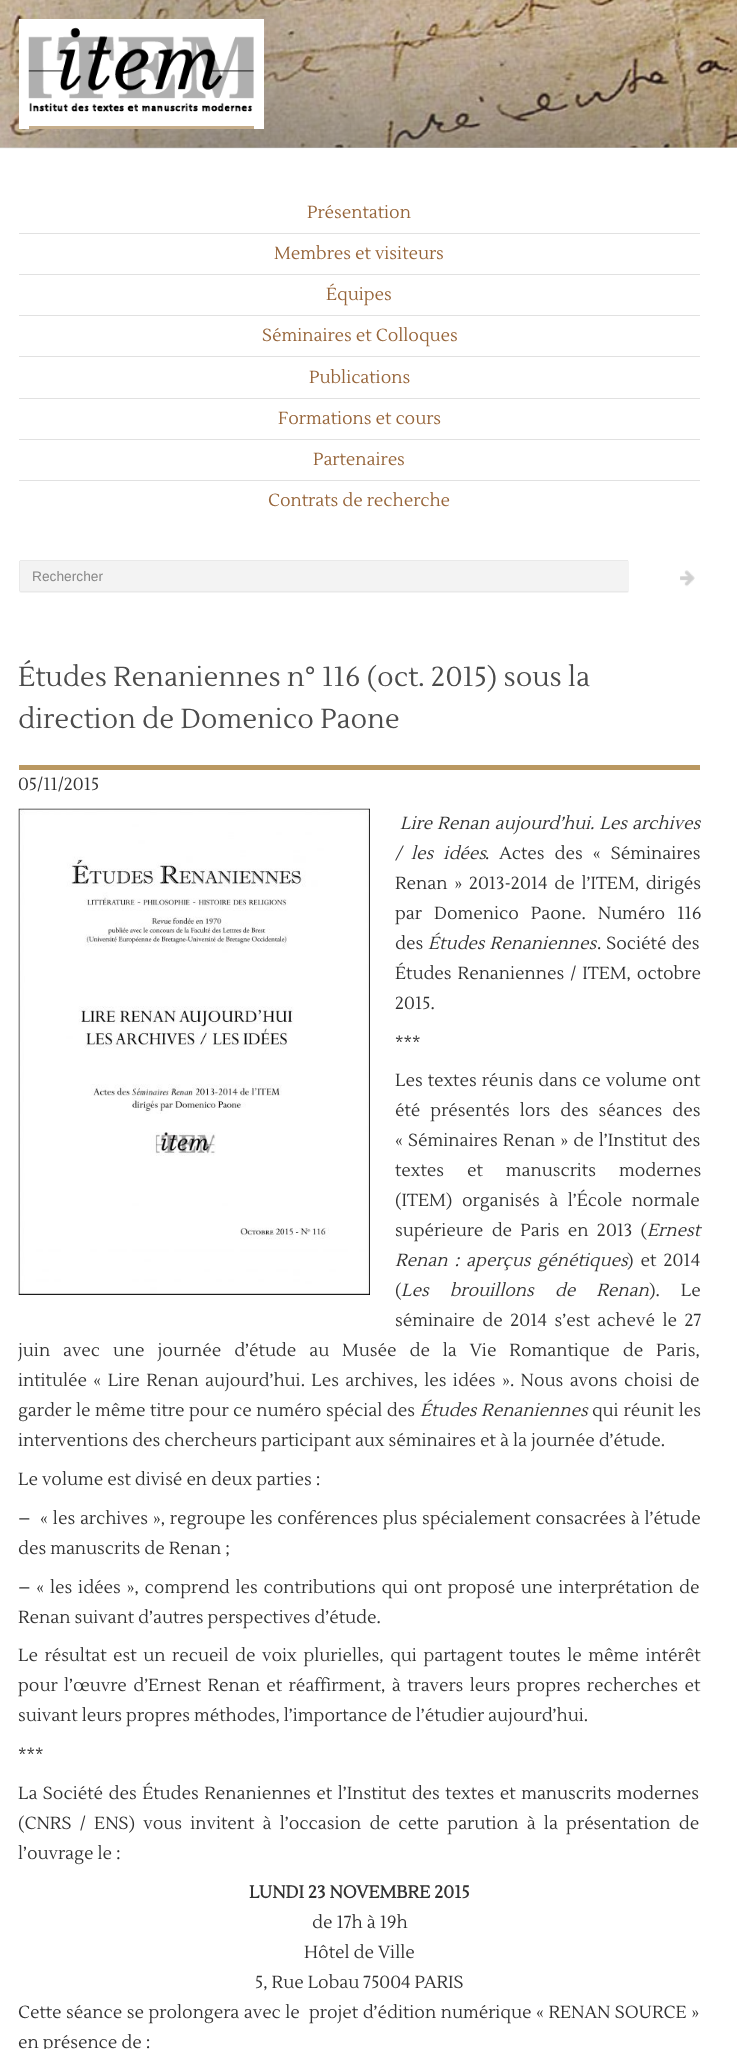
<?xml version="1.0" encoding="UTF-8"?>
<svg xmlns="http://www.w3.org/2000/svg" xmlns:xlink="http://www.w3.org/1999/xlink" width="737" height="2049">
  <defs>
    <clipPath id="clip1"><rect x="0" y="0" width="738" height="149" /></clipPath>
    <clipPath id="clip2"><rect x="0" y="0" width="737" height="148" /></clipPath>
  </defs>
  <rect width="100%" height="100%" fill="#ffffff" />
  <image x="0" y="0" width="737" height="148" xlink:href="image1.png" />
  <g clip-path="url(#clip1)">
    <rect x="23" y="-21" width="237" height="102" fill="#4c4c4c" fill-opacity="0.55" filter="blur(79px)" />
  </g>
  <g clip-path="url(#clip2)">
    <rect y="128" width="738" height="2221" fill="#4c4c4c" fill-opacity="0.75" filter="blur(100px)" />
  </g>
  <rect x="19" y="19" width="245" height="110" fill="#ffffff" />
  <image x="28" y="27" width="226" height="85" xlink:href="image2.png" />
  <rect x="29" y="126" width="225" height="3" fill="#c6ae8c" />
  <rect x="19" y="233" width="681" height="1" fill="#e1e1e1" />
  <rect x="19" y="274" width="681" height="1" fill="#e1e1e1" />
  <rect x="19" y="315" width="681" height="1" fill="#e1e1e1" />
  <rect x="19" y="356" width="681" height="1" fill="#e1e1e1" />
  <rect x="19" y="398" width="681" height="1" fill="#e1e1e1" />
  <rect x="19" y="439" width="681" height="1" fill="#e1e1e1" />
  <rect x="19" y="480" width="681" height="1" fill="#e1e1e1" />
  <rect x="19" y="560" width="610" height="33" rx="2.5" fill="#f3f3f3" />
  <rect x="20" y="560" width="608" height="1" fill="#e9e9e9" />
  <rect x="20" y="591" width="608" height="1" fill="#e9e9e9" />
  <rect x="19" y="561" width="1" height="30" fill="#e9e9e9" />
  <image x="680" y="570" width="15" height="17" xlink:href="image3.png" />
  <rect x="19" y="765" width="681" height="5" fill="#ba9861" />
  <image x="18" y="808" width="352" height="487" xlink:href="image4.png" />
  <text x="307" y="218" style="font-family: Lustria; font-size: 17.5px; fill: #97653a">Présentation</text>
  <text x="274" y="259" style="font-family: Lustria; font-size: 17.5px; fill: #97653a">Membres et visiteurs</text>
  <text x="326" y="300" style="font-family: Lustria; font-size: 17.5px; fill: #97653a">Équipes</text>
  <text x="262" y="341" style="font-family: Lustria; font-size: 17.5px; fill: #97653a">Séminaires et Colloques</text>
  <text x="309" y="383" style="font-family: Lustria; font-size: 17.5px; fill: #97653a">Publications</text>
  <text x="278" y="424" style="font-family: Lustria; font-size: 17.5px; fill: #97653a">Formations et cours</text>
  <text x="313" y="465" style="font-family: Lustria; font-size: 17.5px; fill: #97653a">Partenaires</text>
  <text x="268" y="506" style="font-family: Lustria; font-size: 17.5px; fill: #97653a">Contrats de recherche</text>
  <text x="32" y="581" style="font-family: Liberation Sans; font-size: 13.75px; fill: #888888">Rechercher</text>
  <text x="18" y="686" style="font-family: Lustria; font-size: 27.5px; fill: #4c4c4c">Études Renaniennes n° 116 (oct. 2015) sous la</text>
  <text x="18" y="728" style="font-family: Lustria; font-size: 27.5px; fill: #4c4c4c">direction de Domenico Paone</text>
  <text x="18" y="790" style="font-family: Lustria; font-size: 17.5px; fill: #333333">05/11/2015</text>
  <text x="400" y="829" word-spacing="1" style="font-family: Lustria; font-size: 17.5px; font-style: italic; fill: #333333">Lire Renan aujourd’hui. Les archives</text>
  <text x="395" y="859" word-spacing="6" style="font-family: Lustria; font-size: 17.5px; font-style: italic; fill: #333333">/ les idées</text>
  <text x="485" y="859" word-spacing="6" style="font-family: Lustria; font-size: 17.5px; fill: #333333">. Actes des « Séminaires</text>
  <text x="395" y="889" word-spacing="2.75" style="font-family: Lustria; font-size: 17.5px; fill: #333333">Renan » 2013-2014 de l’ITEM, dirigés</text>
  <text x="395" y="919" word-spacing="8" style="font-family: Lustria; font-size: 17.5px; fill: #333333">par Domenico Paone. Numéro 116</text>
  <text x="395" y="949" style="font-family: Lustria; font-size: 17.5px; fill: #333333">des</text>
  <text x="428" y="949" word-spacing="1" style="font-family: Lustria; font-size: 17.5px; font-style: italic; fill: #333333">Études Renaniennes</text>
  <text x="597" y="949" word-spacing="1" style="font-family: Lustria; font-size: 17.5px; fill: #333333">. Société des</text>
  <text x="395" y="979" word-spacing="2" style="font-family: Lustria; font-size: 17.5px; fill: #333333">Études Renaniennes / ITEM, octobre</text>
  <text x="395" y="1009" style="font-family: Lustria; font-size: 17.5px; fill: #333333">2015.</text>
  <text x="395" y="1048" style="font-family: Lustria; font-size: 17.5px; fill: #333333">***</text>
  <text x="395" y="1086" word-spacing="1" style="font-family: Lustria; font-size: 17.5px; fill: #333333">Les textes réunis dans ce volume ont</text>
  <text x="395" y="1116" word-spacing="6" style="font-family: Lustria; font-size: 17.5px; fill: #333333">été présentés lors des séances des</text>
  <text x="395" y="1146" word-spacing="1" style="font-family: Lustria; font-size: 17.5px; fill: #333333">« Séminaires Renan » de l’Institut des</text>
  <text x="395" y="1176" word-spacing="19" style="font-family: Lustria; font-size: 17.5px; fill: #333333">textes et manuscrits modernes</text>
  <text x="395" y="1206" word-spacing="5.5" style="font-family: Lustria; font-size: 17.5px; fill: #333333">(ITEM) organisés à l’École normale</text>
  <text x="395" y="1236" word-spacing="4.25" style="font-family: Lustria; font-size: 17.5px; fill: #333333">supérieure de Paris en 2013 (</text>
  <text x="647" y="1236" style="font-family: Lustria; font-size: 17.5px; font-style: italic; fill: #333333">Ernest</text>
  <text x="395" y="1266" word-spacing="3" style="font-family: Lustria; font-size: 17.5px; font-style: italic; fill: #333333">Renan : aperçus génétiques</text>
  <text x="627" y="1266" word-spacing="3" style="font-family: Lustria; font-size: 17.5px; fill: #333333">) et 2014</text>
  <text x="395" y="1296" style="font-family: Lustria; font-size: 17.5px; fill: #333333">(</text>
  <text x="401" y="1296" word-spacing="17" style="font-family: Lustria; font-size: 17.5px; font-style: italic; fill: #333333">Les brouillons de Renan</text>
  <text x="649" y="1296" word-spacing="17" style="font-family: Lustria; font-size: 17.5px; fill: #333333">). Le</text>
  <text x="395" y="1326" word-spacing="3.5" style="font-family: Lustria; font-size: 17.5px; fill: #333333">séminaire de 2014 s’est achevé le 27</text>
  <text x="18" y="1356" word-spacing="8.9" style="font-family: Lustria; font-size: 17.5px; fill: #333333">juin avec une journée d’étude au Musée de la Vie Romantique de Paris,</text>
  <text x="18" y="1386" word-spacing="2.4" style="font-family: Lustria; font-size: 17.5px; fill: #333333">intitulée « Lire Renan aujourd’hui. Les archives, les idées ». Nous avons choisi de</text>
  <text x="18" y="1416" word-spacing="0.5" style="font-family: Lustria; font-size: 17.5px; fill: #333333">garder le même titre pour ce numéro spécial des</text>
  <text x="420" y="1416" word-spacing="0.5" style="font-family: Lustria; font-size: 17.5px; font-style: italic; fill: #333333">Études Renaniennes</text>
  <text x="592" y="1416" word-spacing="1" style="font-family: Lustria; font-size: 17.5px; fill: #333333">qui réunit les</text>
  <text x="18" y="1446" style="font-family: Lustria; font-size: 17.5px; fill: #333333">interventions des chercheurs participant aux séminaires et à la journée d’étude.</text>
  <text x="18" y="1485" style="font-family: Lustria; font-size: 17.5px; fill: #333333">Le volume est divisé en deux parties :</text>
  <text x="18" y="1524" word-spacing="0.75" style="font-family: Lustria; font-size: 17.5px; fill: #333333" xml:space="preserve">–  « les archives », regroupe les conférences plus spécialement consacrées à l’étude</text>
  <text x="18" y="1554" style="font-family: Lustria; font-size: 17.5px; fill: #333333">des manuscrits de Renan ;</text>
  <text x="18" y="1593" word-spacing="1.75" style="font-family: Lustria; font-size: 17.5px; fill: #333333">– « les idées », comprend les contributions qui ont proposé une interprétation de</text>
  <text x="18" y="1623" style="font-family: Lustria; font-size: 17.5px; fill: #333333">Renan suivant d’autres perspectives d’étude.</text>
  <text x="18" y="1661" word-spacing="2.6" style="font-family: Lustria; font-size: 17.5px; fill: #333333">Le résultat est un recueil de voix plurielles, qui partagent toutes le même intérêt</text>
  <text x="18" y="1691" word-spacing="2.4" style="font-family: Lustria; font-size: 17.5px; fill: #333333">pour l’œuvre d’Ernest Renan et réaffirment, à travers leurs propres recherches et</text>
  <text x="18" y="1721" style="font-family: Lustria; font-size: 17.5px; fill: #333333">suivant leurs propres méthodes, l’importance de l’étudier aujourd’hui.</text>
  <text x="18" y="1760" style="font-family: Lustria; font-size: 17.5px; fill: #333333">***</text>
  <text x="18" y="1799" word-spacing="1.5" style="font-family: Lustria; font-size: 17.5px; fill: #333333">La Société des Études Renaniennes et l’Institut des textes et manuscrits modernes</text>
  <text x="18" y="1829" word-spacing="4.25" style="font-family: Lustria; font-size: 17.5px; fill: #333333">(CNRS / ENS) vous invitent à l’occasion de cette parution à la présentation de</text>
  <text x="18" y="1859" style="font-family: Lustria; font-size: 17.5px; fill: #333333">l’ouvrage le :</text>
  <text x="249" y="1898" style="font-family: Lustria; font-size: 17.5px; font-weight: bold; fill: #333333">LUNDI 23 NOVEMBRE 2015</text>
  <text x="312" y="1928" style="font-family: Lustria; font-size: 17.5px; fill: #333333">de 17h à 19h</text>
  <text x="304" y="1958" style="font-family: Lustria; font-size: 17.5px; fill: #333333">Hôtel de Ville</text>
  <text x="255" y="1988" style="font-family: Lustria; font-size: 17.5px; fill: #333333">5, Rue Lobau 75004 PARIS</text>
  <text x="18" y="2018" word-spacing="0.5" style="font-family: Lustria; font-size: 17.5px; fill: #333333" xml:space="preserve">Cette séance se prolongera avec le  projet d’édition numérique « RENAN SOURCE »</text>
  <text x="18" y="2048" style="font-family: Lustria; font-size: 17.5px; fill: #333333">en présence de :</text>
</svg>
